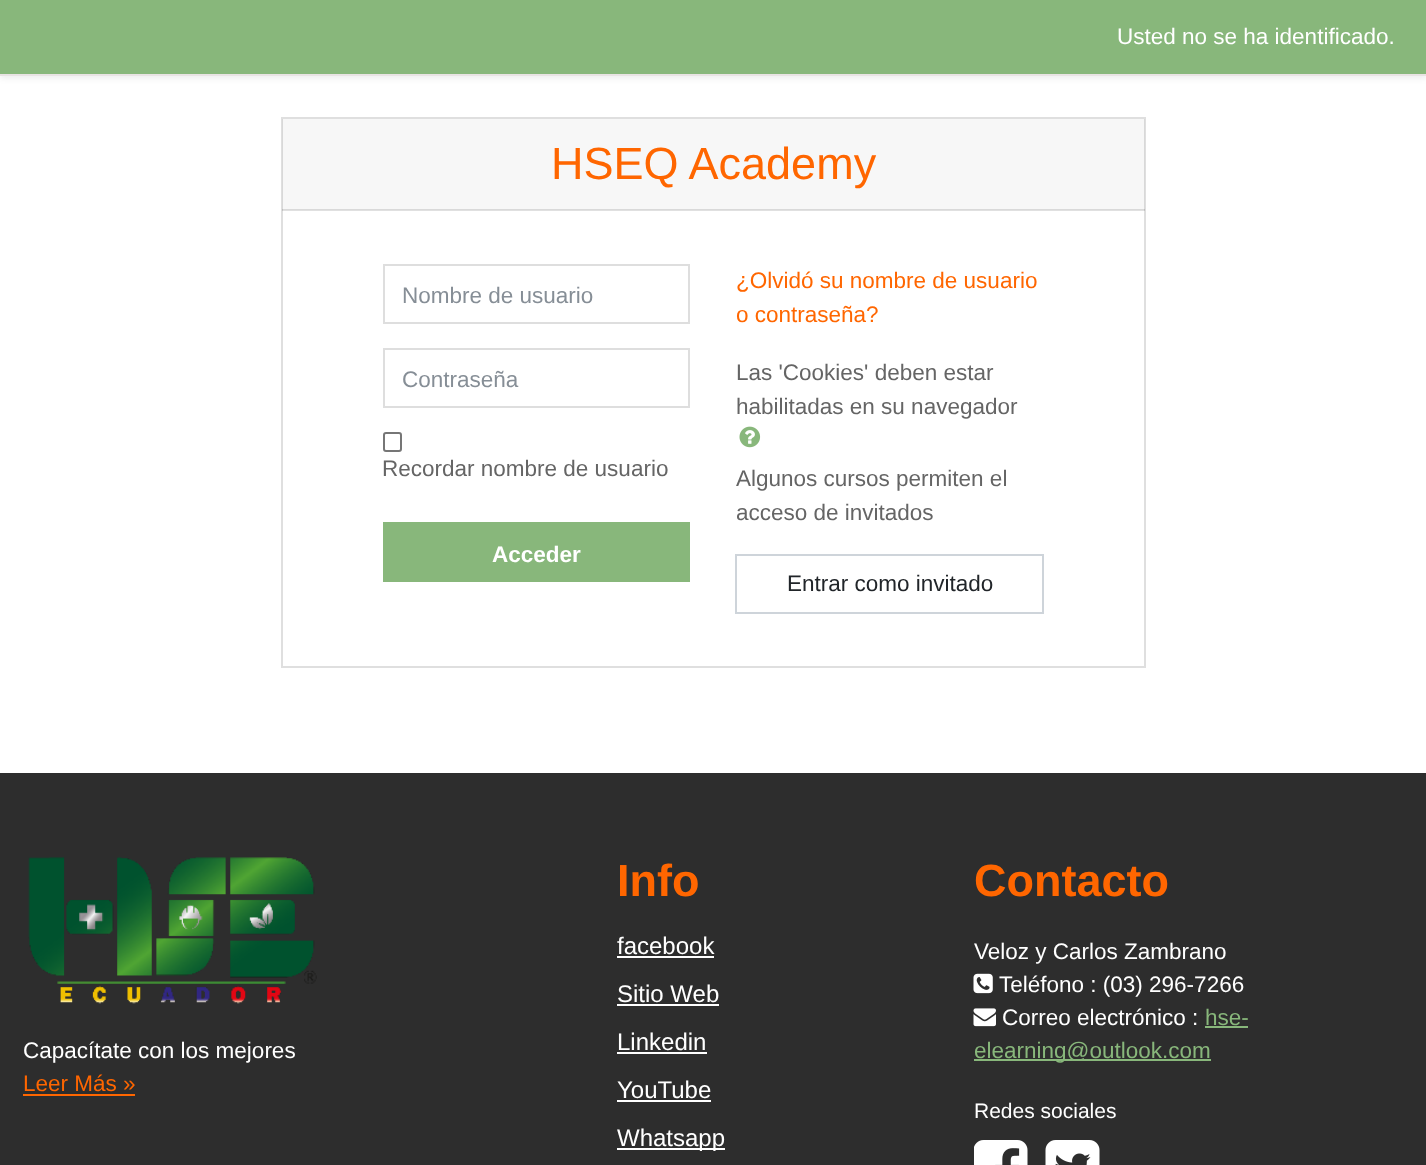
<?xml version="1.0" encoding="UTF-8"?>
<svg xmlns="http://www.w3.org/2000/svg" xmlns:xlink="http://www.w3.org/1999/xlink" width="1426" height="1165">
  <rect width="100%" height="100%" fill="#ffffff" />
  <rect y="3" width="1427" height="75" fill="#000000" fill-opacity="0.08" filter="blur(3px)" />
  <rect width="1426" height="74" fill="#88b77b" />
  <rect y="74" width="1426" height="2" fill="#e8e3e3" />
  <rect x="282" y="118" width="863" height="549" fill="none" stroke="#dfdfdf" stroke-width="2" />
  <rect x="282" y="119" width="863" height="91" fill="#000000" fill-opacity="0.03" />
  <rect x="282" y="209" width="863" height="2" fill="#000000" fill-opacity="0.12" />
  <rect x="384" y="265" width="305" height="58" fill="none" stroke="#dedede" stroke-width="2" />
  <rect x="384" y="349" width="305" height="58" fill="none" stroke="#dedede" stroke-width="2" />
  <rect x="384" y="433" width="17" height="18" rx="2" fill="none" stroke="#767676" stroke-width="2" />
  <rect x="383" y="522" width="307" height="60" fill="#88b77b" />
  <image x="739" y="426" width="22" height="22" xlink:href="image1.png" />
  <rect x="736" y="555" width="307" height="58" fill="none" stroke="#ced4da" stroke-width="2" />
  <rect y="773" width="1426" height="392" fill="#2d2d2d" />
  <image x="28" y="857" width="289" height="147" xlink:href="image2.png" />
  <rect x="23" y="1094" width="112" height="2" fill="#ff6600" />
  <rect x="617" y="956" width="97" height="2" fill="#ffffff" />
  <rect x="617" y="1004" width="102" height="2" fill="#ffffff" />
  <rect x="617" y="1052" width="90" height="2" fill="#ffffff" />
  <rect x="617" y="1100" width="94" height="2" fill="#ffffff" />
  <rect x="617" y="1148" width="108" height="2" fill="#ffffff" />
  <image x="973" y="973" width="20" height="21" xlink:href="image3.png" />
  <image x="973" y="1008" width="23" height="19" xlink:href="image4.png" />
  <rect x="1205" y="1026" width="43" height="2" fill="#88b77b" />
  <rect x="974" y="1059" width="237" height="2" fill="#88b77b" />
  <image x="974" y="1140" width="54" height="25" xlink:href="image5.png" />
  <image x="1045" y="1140" width="55" height="25" xlink:href="image6.png" />
  <text x="1117" y="44" style="font-family: Liberation Sans; font-size: 22.5px; fill: #ffffff">Usted no se ha identificado.</text>
  <text x="551" y="179" style="font-family: Liberation Sans; font-size: 45px; fill: #ff6600">HSEQ Academy</text>
  <text x="402" y="303" style="font-family: Liberation Sans; font-size: 22.5px; fill: #868e96">Nombre de usuario</text>
  <text x="402" y="387" style="font-family: Liberation Sans; font-size: 22.5px; fill: #868e96">Contraseña</text>
  <text x="382" y="476" style="font-family: Liberation Sans; font-size: 22.5px; fill: #656565">Recordar nombre de usuario</text>
  <text x="492" y="562" style="font-family: Liberation Sans; font-size: 22.5px; font-weight: bold; fill: #ffffff">Acceder</text>
  <text x="736" y="288" style="font-family: Liberation Sans; font-size: 22.5px; fill: #ff6600">¿Olvidó su nombre de usuario</text>
  <text x="736" y="322" style="font-family: Liberation Sans; font-size: 22.5px; fill: #ff6600">o contraseña?</text>
  <text x="736" y="380" style="font-family: Liberation Sans; font-size: 22.5px; fill: #656565">Las 'Cookies' deben estar</text>
  <text x="736" y="414" style="font-family: Liberation Sans; font-size: 22.5px; fill: #656565">habilitadas en su navegador</text>
  <text x="736" y="486" style="font-family: Liberation Sans; font-size: 22.5px; fill: #656565">Algunos cursos permiten el</text>
  <text x="736" y="520" style="font-family: Liberation Sans; font-size: 22.5px; fill: #656565">acceso de invitados</text>
  <text x="787" y="591" style="font-family: Liberation Sans; font-size: 22.5px; fill: #212529">Entrar como invitado</text>
  <text x="23" y="1058" style="font-family: Liberation Sans; font-size: 22.5px; fill: #ffffff">Capacítate con los mejores</text>
  <text x="23" y="1091" style="font-family: Liberation Sans; font-size: 22.5px; fill: #ff6600">Leer Más »</text>
  <text x="617" y="896" style="font-family: Liberation Sans; font-size: 45px; font-weight: bold; fill: #ff6600">Info</text>
  <text x="617" y="954" style="font-family: Liberation Sans; font-size: 24px; fill: #ffffff">facebook</text>
  <text x="617" y="1002" style="font-family: Liberation Sans; font-size: 24px; fill: #ffffff">Sitio Web</text>
  <text x="617" y="1050" style="font-family: Liberation Sans; font-size: 24px; fill: #ffffff">Linkedin</text>
  <text x="617" y="1098" style="font-family: Liberation Sans; font-size: 24px; fill: #ffffff">YouTube</text>
  <text x="617" y="1146" style="font-family: Liberation Sans; font-size: 24px; fill: #ffffff">Whatsapp</text>
  <text x="974" y="896" style="font-family: Liberation Sans; font-size: 45px; font-weight: bold; fill: #ff6600">Contacto</text>
  <text x="974" y="959" style="font-family: Liberation Sans; font-size: 22.5px; fill: #ffffff">Veloz y Carlos Zambrano</text>
  <text x="999" y="992" style="font-family: Liberation Sans; font-size: 22.5px; fill: #ffffff">Teléfono : (03) 296-7266</text>
  <text x="1002" y="1025" style="font-family: Liberation Sans; font-size: 22.5px; fill: #ffffff">Correo electrónico :</text>
  <text x="1205" y="1025" style="font-family: Liberation Sans; font-size: 22.5px; fill: #88b77b">hse-</text>
  <text x="974" y="1058" style="font-family: Liberation Sans; font-size: 22.5px; fill: #88b77b">elearning@outlook.com</text>
  <text x="974" y="1118" style="font-family: Liberation Sans; font-size: 21px; fill: #ffffff">Redes sociales</text>
</svg>
